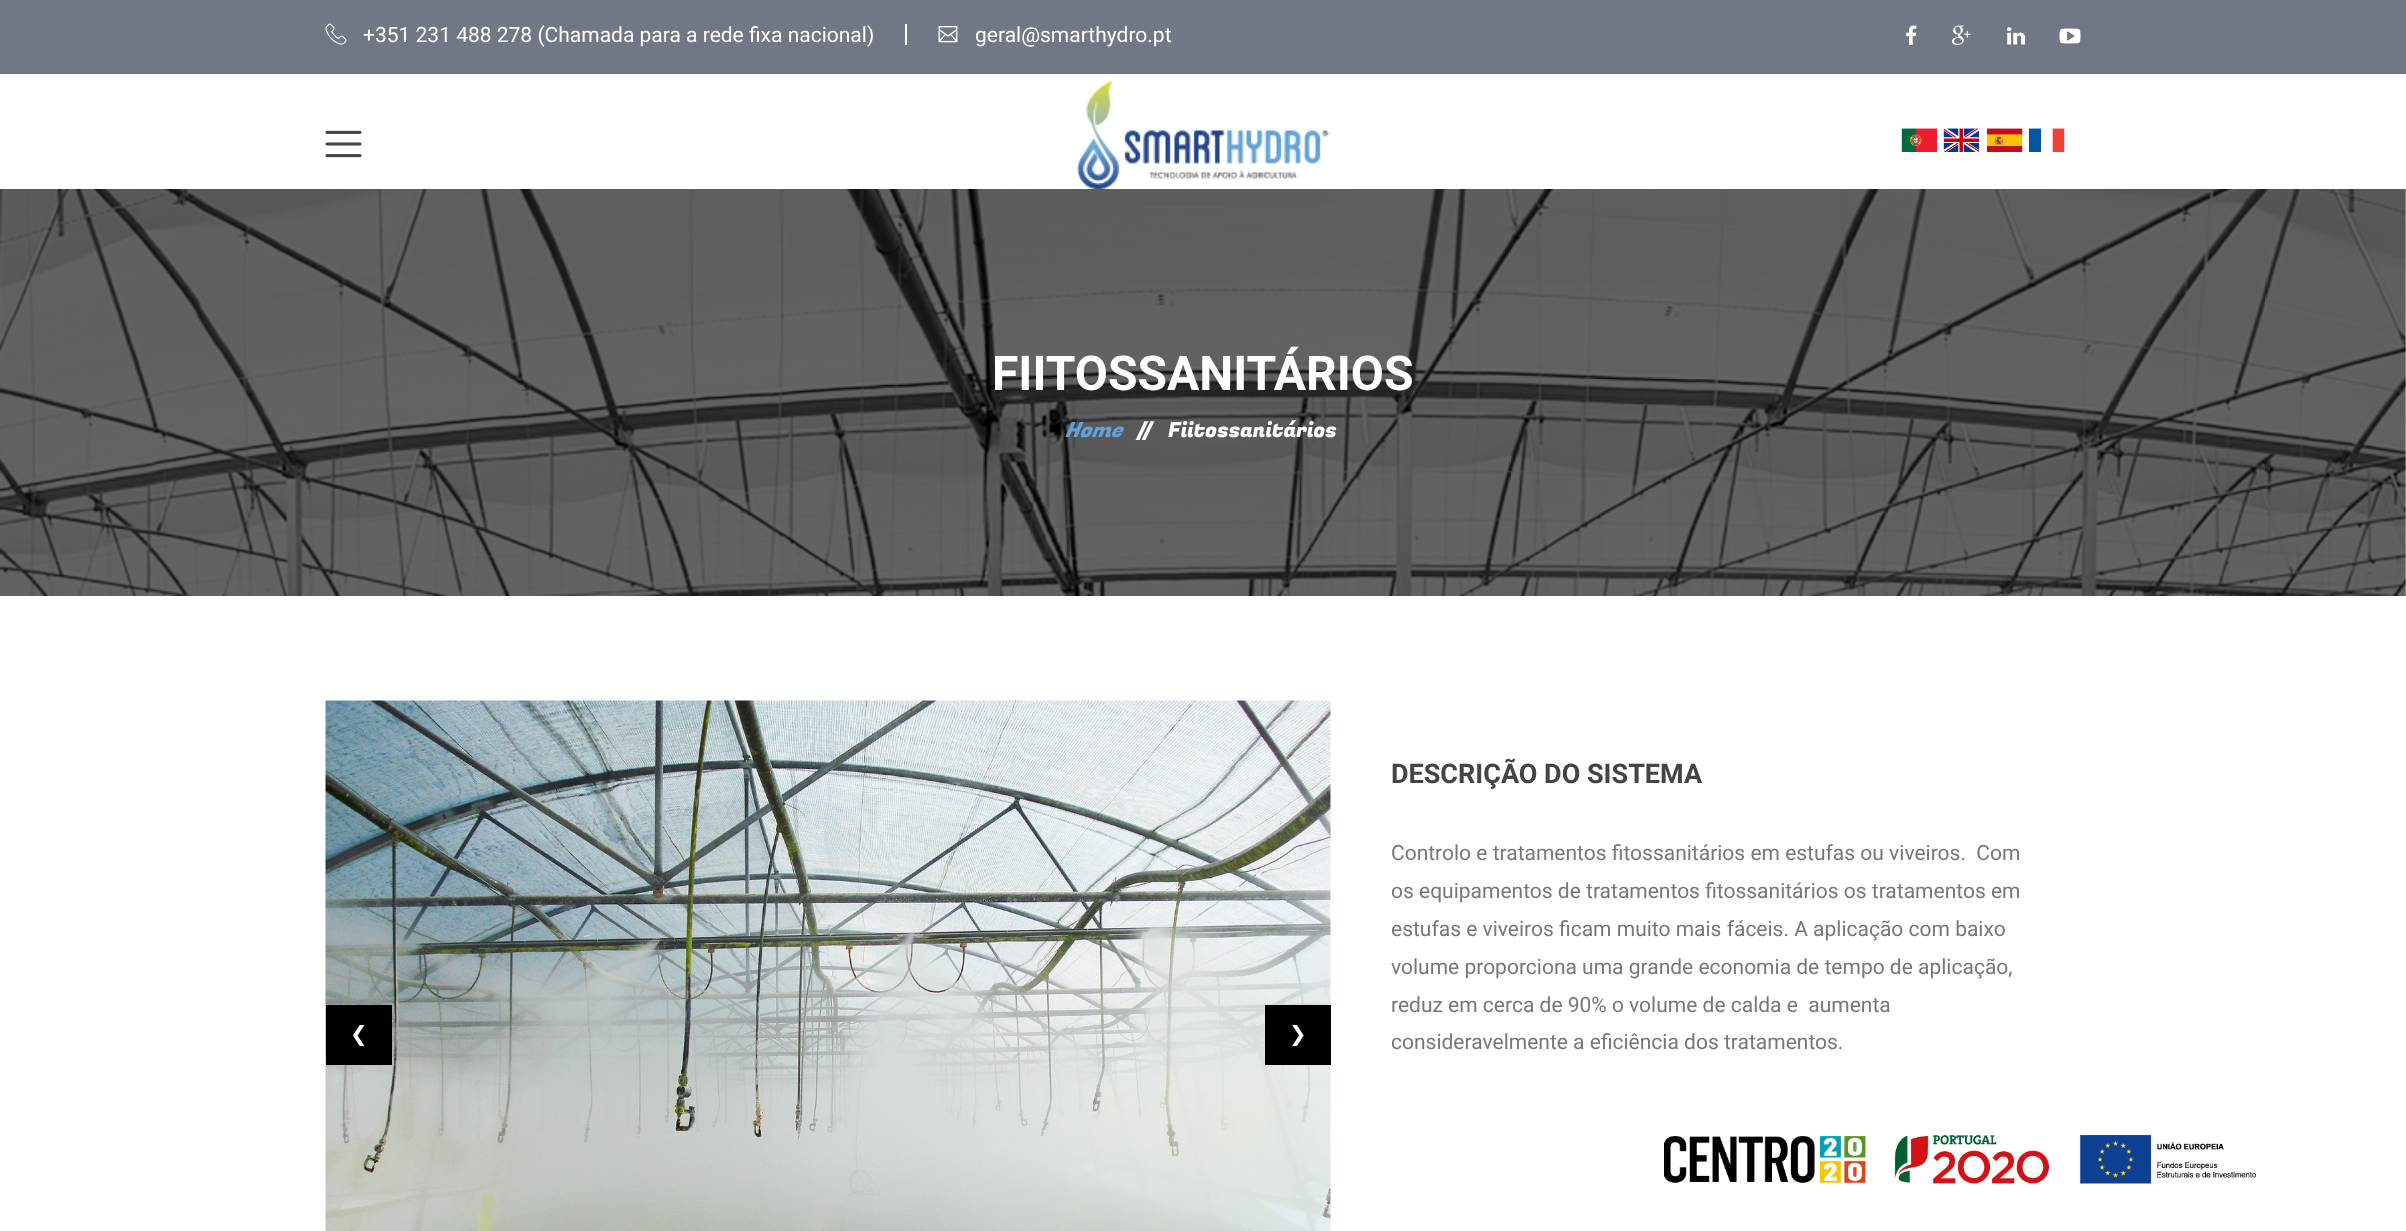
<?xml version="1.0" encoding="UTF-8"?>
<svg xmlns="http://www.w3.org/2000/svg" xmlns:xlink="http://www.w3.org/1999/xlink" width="2406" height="1231">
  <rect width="100%" height="100%" fill="#ffffff" />
  <rect width="2406" height="74" fill="#717784" />
  <rect x="905" y="24" width="2" height="21" fill="#ffffff" />
  <image x="325" y="23" width="22" height="22" xlink:href="image1.png" />
  <image x="938" y="26" width="20" height="17" xlink:href="image2.png" />
  <image x="1906" y="25" width="11" height="20" xlink:href="image3.png" />
  <image x="1951" y="25" width="20" height="20" xlink:href="image4.png" />
  <image x="2007" y="27" width="18" height="18" xlink:href="image5.png" />
  <image x="2059" y="28" width="22" height="16" xlink:href="image6.png" />
  <image x="325" y="130" width="37" height="28" xlink:href="image7.png" />
  <image x="0" y="189" width="2406" height="407" xlink:href="image13.png" />
  <image x="1076" y="80" width="254" height="110" xlink:href="image8.png" />
  <image x="1901" y="128" width="36" height="24" xlink:href="image9.png" />
  <image x="1943" y="128" width="36" height="24" xlink:href="image10.png" />
  <image x="1987" y="128" width="36" height="24" xlink:href="image11.png" />
  <image x="2029" y="128" width="36" height="24" xlink:href="image12.png" />
  <image x="325" y="700" width="1006" height="531" xlink:href="image14.png" />
  <rect x="326" y="1005" width="66" height="60" fill="#000000" />
  <rect x="1265" y="1005" width="66" height="60" fill="#000000" />
  <image x="1664" y="1135" width="592" height="49" xlink:href="image15.png" />
  <text x="363" y="42" style="font-family: Roboto; font-size: 21px; fill: #ffffff">+351 231 488 278 (Chamada para a rede fixa nacional)</text>
  <text x="975" y="42" style="font-family: Roboto; font-size: 21px; fill: #ffffff">geral@smarthydro.pt</text>
  <text x="992" y="390" style="font-family: Roboto; font-size: 48px; font-weight: bold; fill: #ffffff">FIITOSSANITÁRIOS</text>
  <text x="1065" y="437" style="font-family: Fugaz One; font-size: 21px; font-style: italic; fill: #63a1d7">Home</text>
  <text x="1137" y="435" style="font-family: Fugaz One; font-size: 18px; fill: #ffffff">//</text>
  <text x="1168" y="437" style="font-family: Fugaz One; font-size: 21px; fill: #ffffff">Fiitossanitários</text>
  <text x="350" y="1041" style="font-family: DejaVu Sans; font-size: 21px; fill: #ffffff">❮</text>
  <text x="1289" y="1041" style="font-family: DejaVu Sans; font-size: 21px; fill: #ffffff">❯</text>
  <text x="1391" y="783" style="font-family: Roboto; font-size: 27px; font-weight: bold; fill: #444444">DESCRIÇÃO DO SISTEMA</text>
  <text x="1391" y="860" style="font-family: Roboto; font-size: 21px; fill: #777777" xml:space="preserve">Controlo e tratamentos fitossanitários em estufas ou viveiros.  Com</text>
  <text x="1391" y="898" style="font-family: Roboto; font-size: 21px; fill: #777777">os equipamentos de tratamentos fitossanitários os tratamentos em</text>
  <text x="1391" y="936" style="font-family: Roboto; font-size: 21px; fill: #777777">estufas e viveiros ficam muito mais fáceis. A aplicação com baixo</text>
  <text x="1391" y="974" style="font-family: Roboto; font-size: 21px; fill: #777777">volume proporciona uma grande economia de tempo de aplicação,</text>
  <text x="1391" y="1012" style="font-family: Roboto; font-size: 21px; fill: #777777" xml:space="preserve">reduz em cerca de 90% o volume de calda e  aumenta</text>
  <text x="1391" y="1049" style="font-family: Roboto; font-size: 21px; fill: #777777">consideravelmente a eficiência dos tratamentos.</text>
</svg>
